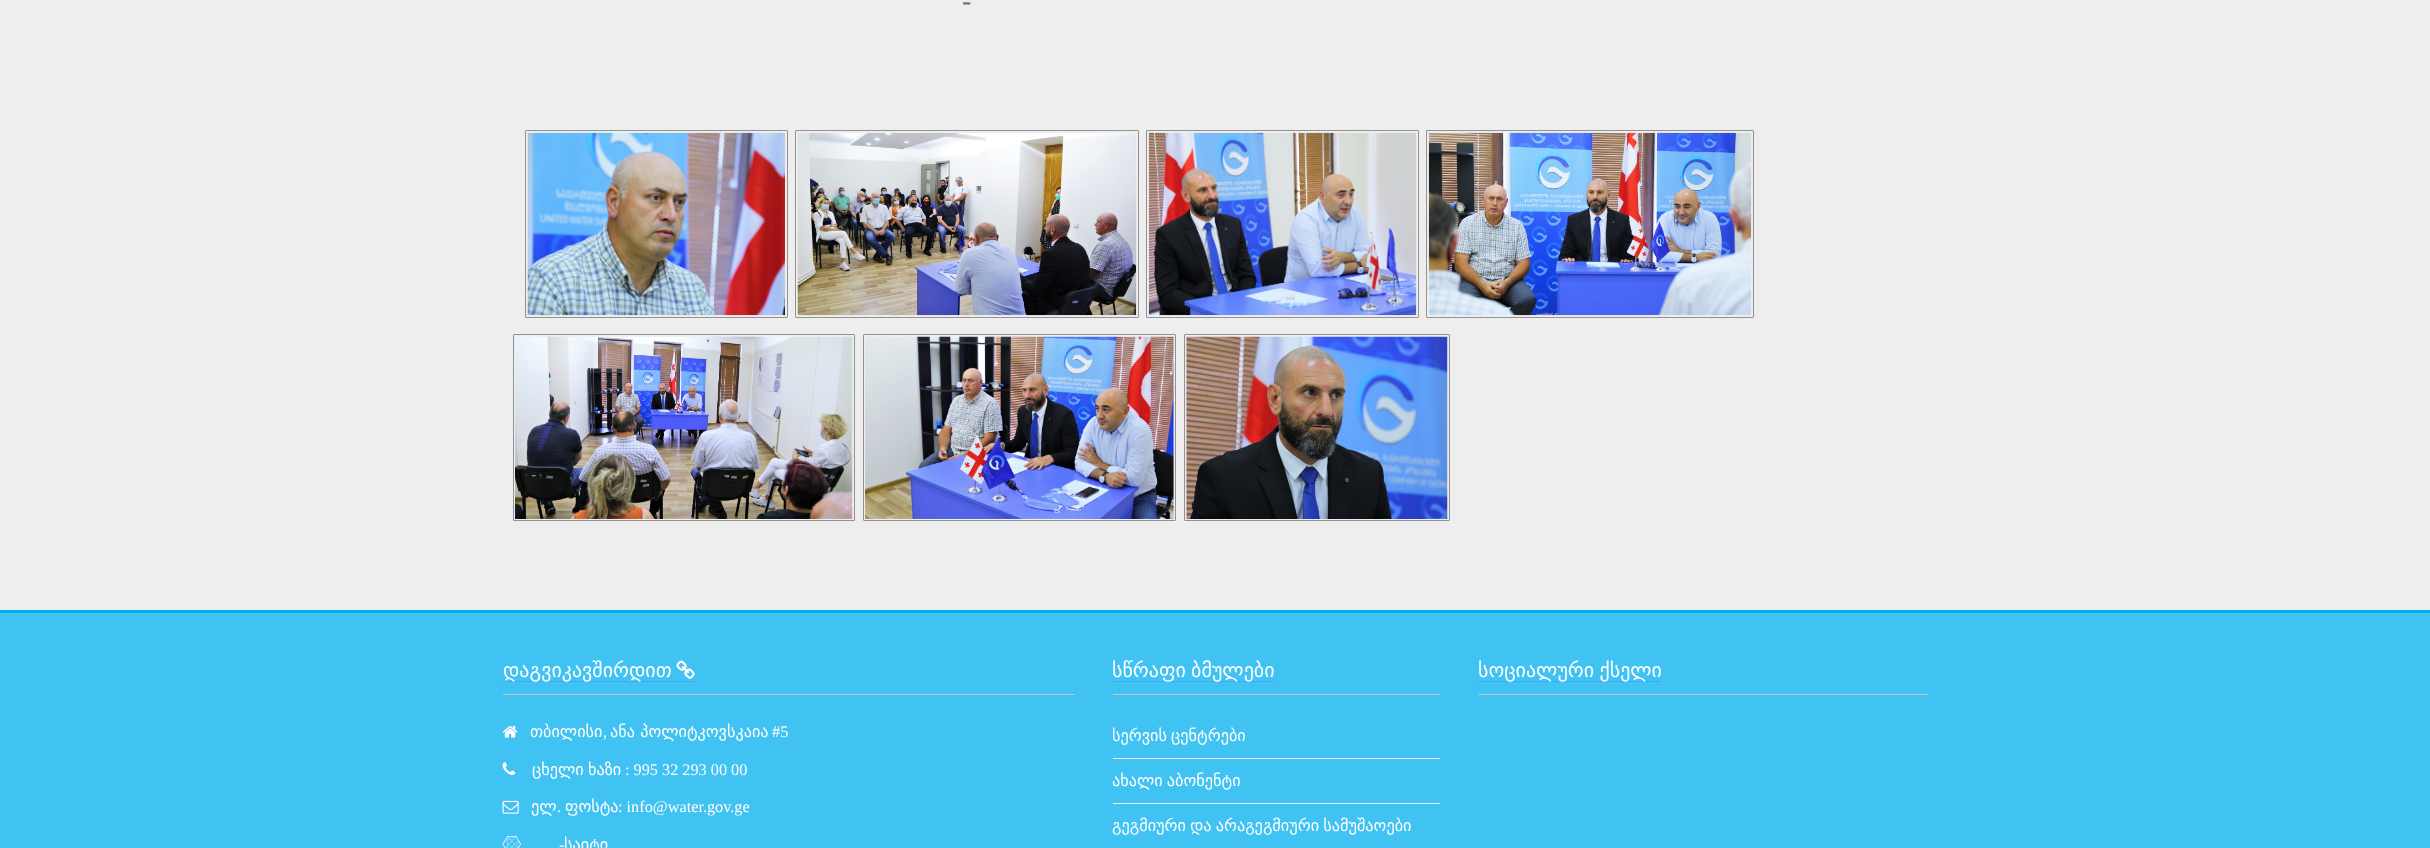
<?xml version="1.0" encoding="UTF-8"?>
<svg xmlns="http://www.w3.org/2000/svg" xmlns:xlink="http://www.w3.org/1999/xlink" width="2430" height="848">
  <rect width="100%" height="100%" fill="#eeeeee" />
  <rect x="525.5" y="130.5" width="262" height="187" rx="0.5" fill="none" stroke="#929292" />
  <rect x="795.5" y="130.5" width="343" height="187" rx="0.5" fill="none" stroke="#929292" />
  <rect x="1146.5" y="130.5" width="272" height="187" rx="0.5" fill="none" stroke="#929292" />
  <rect x="1426.5" y="130.5" width="327" height="187" rx="0.5" fill="none" stroke="#929292" />
  <image x="527" y="132" width="258" height="184" xlink:href="image1.png" />
  <image x="797" y="133" width="340" height="183" xlink:href="image2.png" />
  <image x="1148" y="132" width="269" height="184" xlink:href="image3.png" />
  <image x="1428" y="132" width="324" height="184" xlink:href="image4.png" />
  <rect x="513.5" y="334.5" width="341" height="186" rx="0.5" fill="none" stroke="#929292" />
  <rect x="863.5" y="334.5" width="312" height="186" rx="0.5" fill="none" stroke="#929292" />
  <rect x="1184.5" y="334.5" width="265" height="186" rx="0.5" fill="none" stroke="#929292" />
  <image x="515" y="336" width="338" height="183" xlink:href="image5.png" />
  <image x="865" y="336" width="309" height="183" xlink:href="image6.png" />
  <image x="1186" y="336" width="262" height="183" xlink:href="image7.png" />
  <rect y="610" width="2430" height="3" fill="#00aeef" />
  <rect y="613" width="2430" height="235" fill="#40c2f3" />
  <rect x="503" y="694" width="572" height="1" fill="#c3c3c3" />
  <rect x="503" y="681" width="192" height="1" fill="#3baafe" />
  <image x="676" y="660" width="19" height="19" xlink:href="image8.png" />
  <image x="502" y="725" width="16" height="13" xlink:href="image9.png" />
  <image x="502" y="762" width="14" height="13" xlink:href="image10.png" />
  <image x="502" y="800" width="17" height="14" xlink:href="image11.png" />
  <image x="502" y="836" width="19" height="12" xlink:href="image12.png" />
  <rect x="1113" y="694" width="327" height="1" fill="#c3c3c3" />
  <rect x="1113" y="681" width="161" height="1" fill="#3baafe" />
  <rect x="1113" y="758" width="327" height="1" fill="#efefef" />
  <rect x="1113" y="803" width="327" height="1" fill="#efefef" />
  <rect x="1478" y="694" width="450" height="1" fill="#c3c3c3" />
  <rect x="1478" y="681" width="183" height="1" fill="#3baafe" />
  <text x="962" y="10" style="font-family: Liberation Serif; font-size: 28px; fill: #687074">-</text>
  <text x="503" y="677" style="font-family: DejaVu Sans; font-size: 20px; fill: #ffffff">დაგვიკავშირდით</text>
  <text x="530" y="737" style="font-family: DejaVu Sans; font-size: 16.25px; fill: #ffffff">თბილისი</text>
  <text x="603" y="737" style="font-family: Liberation Serif; font-size: 16.25px; fill: #ffffff">,</text>
  <text x="610" y="737" style="font-family: DejaVu Sans; font-size: 16.25px; fill: #ffffff">ანა პოლიტკოვსკაია</text>
  <text x="772" y="737" style="font-family: Liberation Serif; font-size: 16.25px; fill: #ffffff">#5</text>
  <text x="532" y="775" style="font-family: DejaVu Sans; font-size: 16.25px; fill: #ffffff">ცხელი</text>
  <text x="588" y="775" style="font-family: DejaVu Sans; font-size: 16.25px; fill: #ffffff">ხაზი</text>
  <text x="625" y="775" style="font-family: Liberation Serif; font-size: 16.25px; fill: #ffffff">: 995 32 293 00 00</text>
  <text x="531" y="812" style="font-family: DejaVu Sans; font-size: 16.25px; fill: #ffffff">ელ</text>
  <text x="557" y="812" style="font-family: Liberation Serif; font-size: 16.25px; fill: #ffffff">.</text>
  <text x="565" y="812" style="font-family: DejaVu Sans; font-size: 16.25px; fill: #ffffff">ფოსტა</text>
  <text x="618" y="812" style="font-family: Liberation Serif; font-size: 16.25px; fill: #ffffff">: info@water.gov.ge</text>
  <text x="559" y="850" style="font-family: Liberation Serif; font-size: 16.25px; fill: #ffffff">-</text>
  <text x="564" y="850" style="font-family: DejaVu Sans; font-size: 16.25px; fill: #ffffff">საიტი</text>
  <text x="1112" y="677" word-spacing="-1" style="font-family: DejaVu Sans; font-size: 20px; fill: #ffffff">სწრაფი ბმულები</text>
  <text x="1112" y="741" word-spacing="-1" style="font-family: DejaVu Sans; font-size: 16.25px; fill: #ffffff">სერვის ცენტრები</text>
  <text x="1112" y="786" word-spacing="-1" style="font-family: DejaVu Sans; font-size: 16.25px; fill: #ffffff">ახალი აბონენტი</text>
  <text x="1112" y="831" word-spacing="-1" style="font-family: DejaVu Sans; font-size: 16.25px; fill: #ffffff">გეგმიური და არაგეგმიური სამუშაოები</text>
  <text x="1478" y="677" word-spacing="-1" style="font-family: DejaVu Sans; font-size: 20px; fill: #ffffff">სოციალური ქსელი</text>
</svg>
